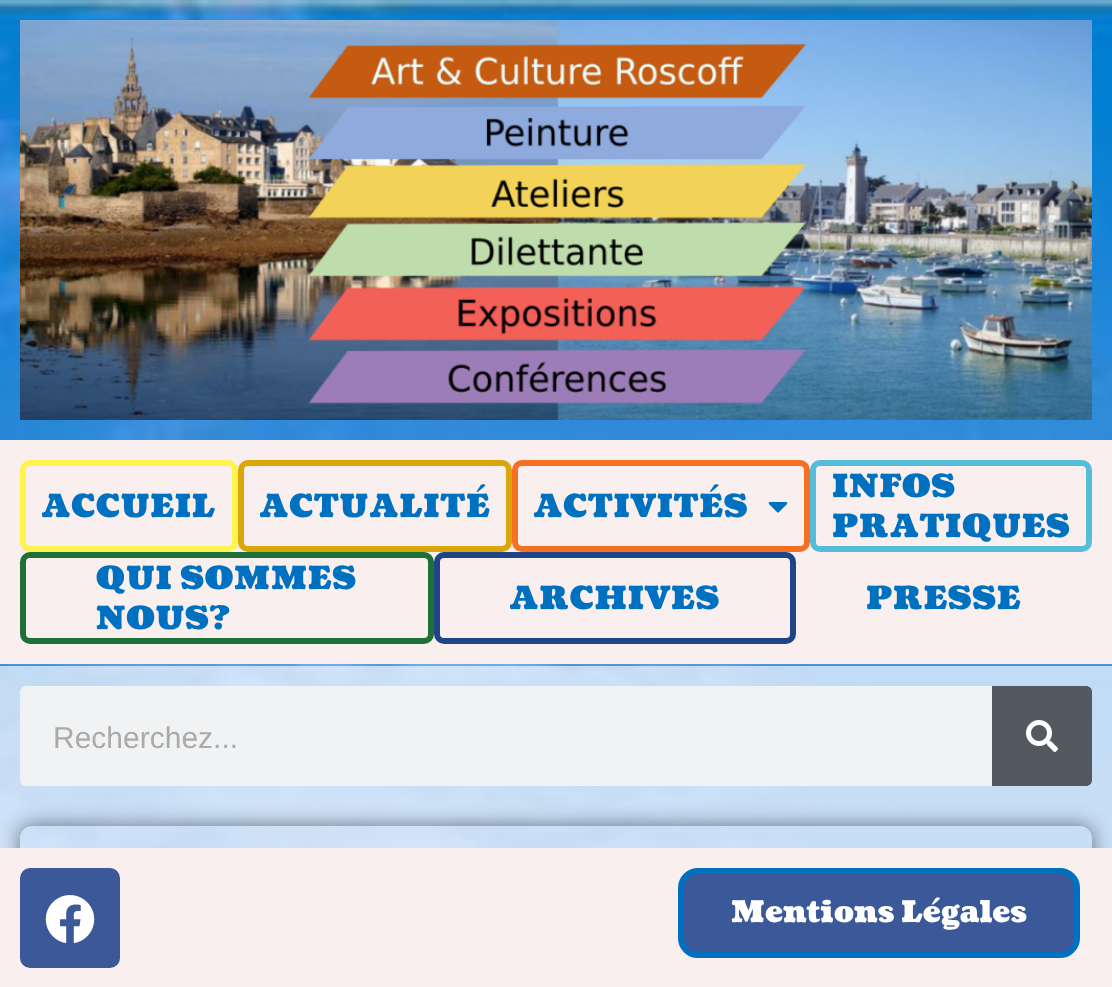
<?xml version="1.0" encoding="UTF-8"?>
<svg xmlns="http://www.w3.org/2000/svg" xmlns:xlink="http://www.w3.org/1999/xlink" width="1112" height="987">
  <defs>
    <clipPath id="clip1"><path d="M 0 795 h 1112 v 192 h -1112 z m 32 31 h 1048 c 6.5 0 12 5.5 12 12 v 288 c 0 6.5 -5.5 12 -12 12 h -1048 c -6.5 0 -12 -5.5 -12 -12 v -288 c 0 -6.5 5.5 -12 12 -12 z" clip-rule="evenodd" /></clipPath>
  </defs>
  <rect width="100%" height="100%" fill="#ffffff" />
  <image x="0" y="0" width="1112" height="848" xlink:href="image1.png" />
  <image x="20" y="20" width="1072" height="400" xlink:href="image2.png" />
  <rect y="440" width="1112" height="224" fill="#f9efef" />
  <rect x="23" y="463" width="212" height="86" rx="7" fill="none" stroke="#fff44f" stroke-width="6" />
  <rect x="241" y="463" width="268" height="86" rx="7" fill="none" stroke="#daa70b" stroke-width="6" />
  <rect x="515" y="463" width="292" height="86" rx="7" fill="none" stroke="#f67022" stroke-width="6" />
  <image x="768" y="502" width="20" height="11" xlink:href="image3.png" />
  <rect x="813" y="463" width="276" height="86" rx="7" fill="none" stroke="#54bddb" stroke-width="6" />
  <rect x="23" y="555" width="408" height="86" rx="7" fill="none" stroke="#1f7038" stroke-width="6" />
  <rect x="437" y="555" width="356" height="86" rx="7" fill="none" stroke="#1f4586" stroke-width="6" />
  <rect y="666" width="1112" height="182" fill="#ffffff" fill-opacity="0.67" />
  <rect x="20" y="686" width="1072" height="100" rx="6" fill="#f1f2f3" />
  <path d="M 992 686 h 94 c 3.5 0 6 2.5 6 6 v 88 c 0 3.5 -2.5 6 -6 6 h -94 z" fill="#54595f" />
  <image x="1026" y="720" width="32" height="32" xlink:href="image4.png" />
  <g clip-path="url(#clip1)">
    <rect x="20" y="826" width="1072" height="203" rx="12" fill="#000000" fill-opacity="0.5" filter="blur(10px)" />
  </g>
  <rect y="848" width="1112" height="139" fill="#f9efef" />
  <rect x="20" y="868" width="100" height="100" rx="10" fill="#3b5998" />
  <image x="45" y="895" width="50" height="49" xlink:href="image5.png" />
  <rect x="681" y="871" width="396" height="84" rx="17" fill="#3b5998" stroke="#0070c0" stroke-width="6" />
  <text x="41" y="517" style="font-family: Coustard; font-size: 32px; font-weight: 900; letter-spacing: 0.75px; fill: #0070c0">ACCUEIL</text>
  <text x="259" y="517" style="font-family: Coustard; font-size: 32px; font-weight: 900; letter-spacing: 0.75px; fill: #0070c0">ACTUALITÉ</text>
  <text x="533" y="517" style="font-family: Coustard; font-size: 32px; font-weight: 900; letter-spacing: 0.75px; fill: #0070c0">ACTIVITÉS</text>
  <text x="832" y="497" style="font-family: Coustard; font-size: 32px; font-weight: 900; letter-spacing: 0.75px; fill: #0070c0">INFOS</text>
  <text x="832" y="537" style="font-family: Coustard; font-size: 32px; font-weight: 900; letter-spacing: 0.75px; fill: #0070c0">PRATIQUES</text>
  <text x="96" y="589" style="font-family: Coustard; font-size: 32px; font-weight: 900; letter-spacing: 0.75px; fill: #0070c0">QUI SOMMES</text>
  <text x="96" y="629" style="font-family: Coustard; font-size: 32px; font-weight: 900; letter-spacing: 0.75px; fill: #0070c0">NOUS?</text>
  <text x="509" y="609" style="font-family: Coustard; font-size: 32px; font-weight: 900; letter-spacing: 0.75px; fill: #0070c0">ARCHIVES</text>
  <text x="866" y="609" style="font-family: Coustard; font-size: 32px; font-weight: 900; letter-spacing: 0.75px; fill: #0070c0">PRESSE</text>
  <text x="53" y="748" style="font-family: Liberation Sans; font-size: 30px; fill: #aaaaaa">Recherchez...</text>
  <text x="731" y="922" style="font-family: Coustard; font-size: 30px; font-weight: 900; fill: #ffffff">Mentions Légales</text>
</svg>
